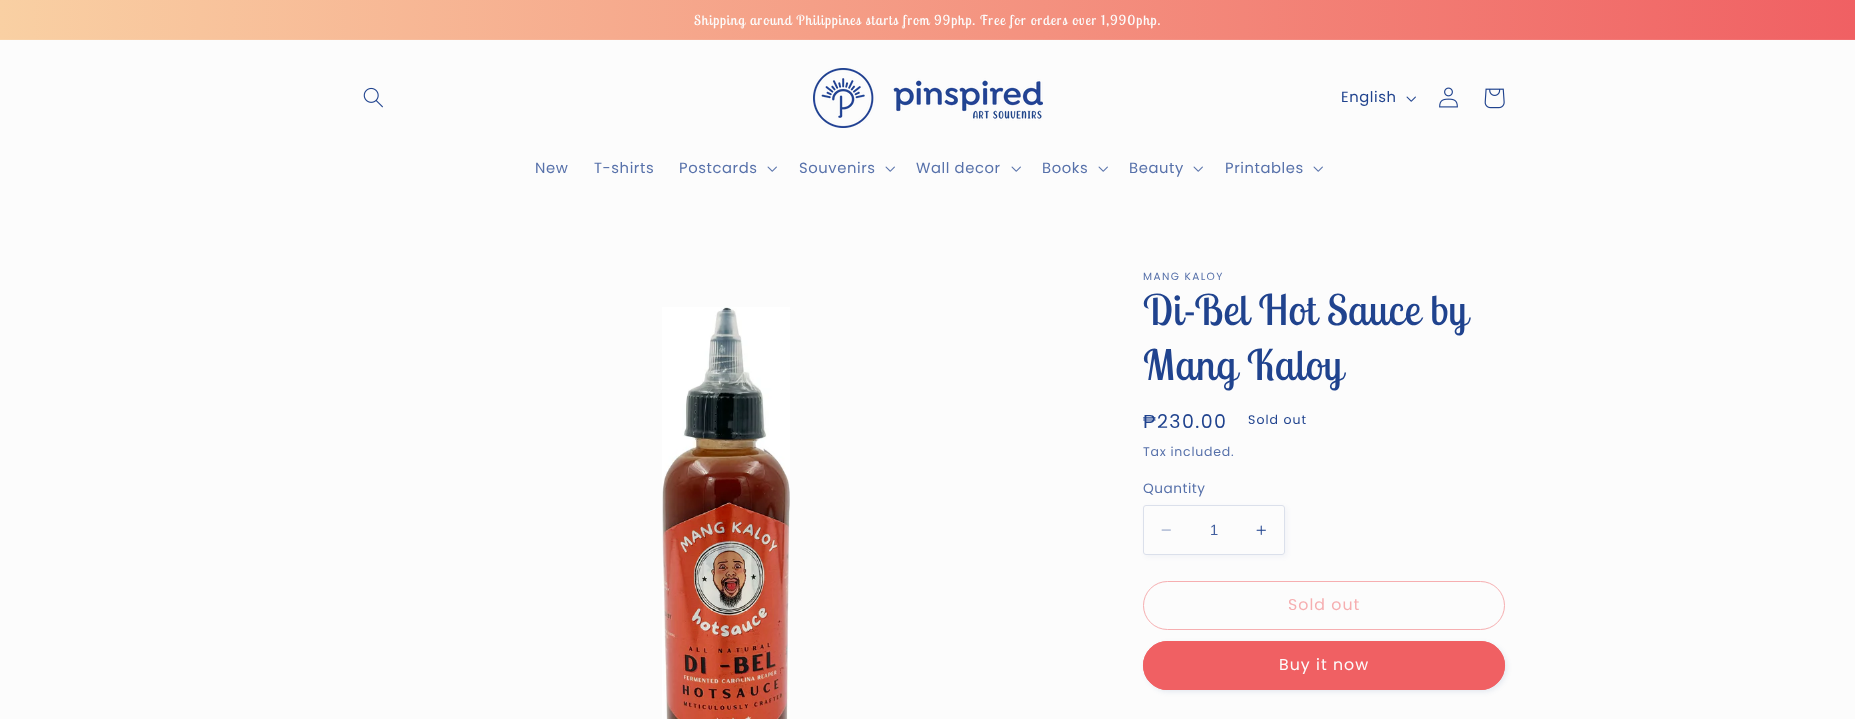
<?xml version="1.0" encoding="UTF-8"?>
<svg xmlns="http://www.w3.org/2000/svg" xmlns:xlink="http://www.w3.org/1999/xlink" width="1855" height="719">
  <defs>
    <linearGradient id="g1" gradientUnits="userSpaceOnUse" x1="1855" y1="359" x2="0" y2="360"><stop offset="0" stop-color="#f06063" /><stop offset="1" stop-color="#f9d0a3" /></linearGradient>
    <linearGradient id="g2" gradientUnits="userSpaceOnUse" x1="1855" y1="359" x2="0" y2="360"><stop offset="0" stop-color="#f16c6f" /><stop offset="1" stop-color="#f9d4aa" /></linearGradient>
  </defs>
  <rect width="100%" height="100%" fill="#fcfcfc" />
  <rect width="1855" height="39" fill="url(#g1)" />
  <rect y="39" width="1855" height="1" fill="url(#g2)" />
  <image x="363" y="87" width="20" height="21" xlink:href="image1.png" />
  <image x="813" y="68" width="230" height="60" xlink:href="image2.png" />
  <image x="1406" y="96" width="10" height="6" xlink:href="image3.png" />
  <image x="1439" y="87" width="19" height="21" xlink:href="image4.png" />
  <image x="1484" y="88" width="21" height="21" xlink:href="image5.png" />
  <image x="767" y="166" width="10" height="6" xlink:href="image6.png" />
  <image x="885" y="166" width="10" height="6" xlink:href="image6.png" />
  <image x="1011" y="166" width="10" height="6" xlink:href="image6.png" />
  <image x="1098" y="166" width="10" height="6" xlink:href="image6.png" />
  <image x="1193" y="166" width="10" height="6" xlink:href="image6.png" />
  <image x="1313" y="166" width="10" height="6" xlink:href="image6.png" />
  <image x="662" y="307" width="128" height="412" xlink:href="image7.png" />
  <rect x="1145" y="507" width="142" height="50" rx="3" fill="#20438e" fill-opacity="0.05" filter="blur(2.5px)" />
  <rect x="1143" y="505" width="142" height="50" rx="3" fill="#fcfcfc" />
  <image x="1161" y="529" width="10" height="2" xlink:href="image8.png" />
  <image x="1256" y="525" width="10" height="10" xlink:href="image9.png" />
  <rect x="1143.5" y="505.5" width="141" height="49" rx="2.5" fill="none" stroke="#dbe0eb" />
  <rect x="1143.5" y="581.5" width="361" height="48" rx="24" fill="none" stroke="#f6aeb0" />
  <rect x="1145" y="643" width="362" height="49" rx="24.5" fill="#20438e" fill-opacity="0.1" filter="blur(2.5px)" />
  <rect x="1143" y="641" width="362" height="49" rx="24.5" fill="#f06063" />
  <rect x="1143.5" y="641.5" width="361" height="48" rx="24" fill="none" stroke="#f06063" />
  <text x="694" y="25" style="font-family: Lobster Two; font-size: 13.65px; letter-spacing: 1.05px; fill: #fcfcfc">Shipping around Philippines starts from 99php. Free for orders over 1,990php.</text>
  <text x="1341" y="102" style="font-family: Poppins; font-size: 14.75px; letter-spacing: 0.6px; fill: #20438e">English</text>
  <text x="535" y="173" style="font-family: Poppins; font-size: 14.75px; letter-spacing: 0.6px; fill: #5771aa">New</text>
  <text x="594" y="173" style="font-family: Poppins; font-size: 14.75px; letter-spacing: 0.6px; fill: #5771aa">T-shirts</text>
  <text x="679" y="173" style="font-family: Poppins; font-size: 14.75px; letter-spacing: 0.6px; fill: #5771aa">Postcards</text>
  <text x="799" y="173" style="font-family: Poppins; font-size: 14.75px; letter-spacing: 0.6px; fill: #5771aa">Souvenirs</text>
  <text x="916" y="173" style="font-family: Poppins; font-size: 14.75px; letter-spacing: 0.6px; fill: #5771aa">Wall decor</text>
  <text x="1042" y="173" style="font-family: Poppins; font-size: 14.75px; letter-spacing: 0.6px; fill: #5771aa">Books</text>
  <text x="1129" y="173" style="font-family: Poppins; font-size: 14.75px; letter-spacing: 0.6px; fill: #5771aa">Beauty</text>
  <text x="1225" y="173" style="font-family: Poppins; font-size: 14.75px; letter-spacing: 0.6px; fill: #5771aa">Printables</text>
  <text x="1143" y="280" style="font-family: Poppins; font-size: 10.5px; letter-spacing: 1.4px; fill: #5771aa">MANG KALOY</text>
  <text x="1143" y="325" style="font-family: Lobster Two; font-size: 42px; letter-spacing: 0.6px; fill: #20438e">Di-Bel Hot Sauce by</text>
  <text x="1143" y="380" style="font-family: Lobster Two; font-size: 42px; letter-spacing: 0.6px; fill: #20438e">Mang Kaloy</text>
  <text x="1143" y="428" style="font-family: Liberation Sans; font-size: 19px; letter-spacing: 1.4px; fill: #20438e">₱</text>
  <text x="1157" y="428" style="font-family: Poppins; font-size: 19px; letter-spacing: 1.4px; fill: #20438e">230.00</text>
  <text x="1248" y="424" style="font-family: Poppins; font-size: 12.5px; letter-spacing: 1.05px; fill: #20438e">Sold out</text>
  <text x="1143" y="456" style="font-family: Poppins; font-size: 12.5px; letter-spacing: 0.75px; fill: #5771aa">Tax included.</text>
  <text x="1143" y="493" style="font-family: Poppins; font-size: 13.65px; letter-spacing: 0.5px; fill: #5771aa">Quantity</text>
  <text x="1210" y="535" style="font-family: Liberation Sans; font-size: 14.75px; fill: #415f9f">1</text>
  <text x="1288" y="610" style="font-family: Poppins; font-size: 15.75px; letter-spacing: 1.05px; fill: #f6aeb0">Sold out</text>
  <text x="1279" y="670" style="font-family: Poppins; font-size: 15.75px; letter-spacing: 1.05px; fill: #fcfcfc">Buy it now</text>
</svg>
